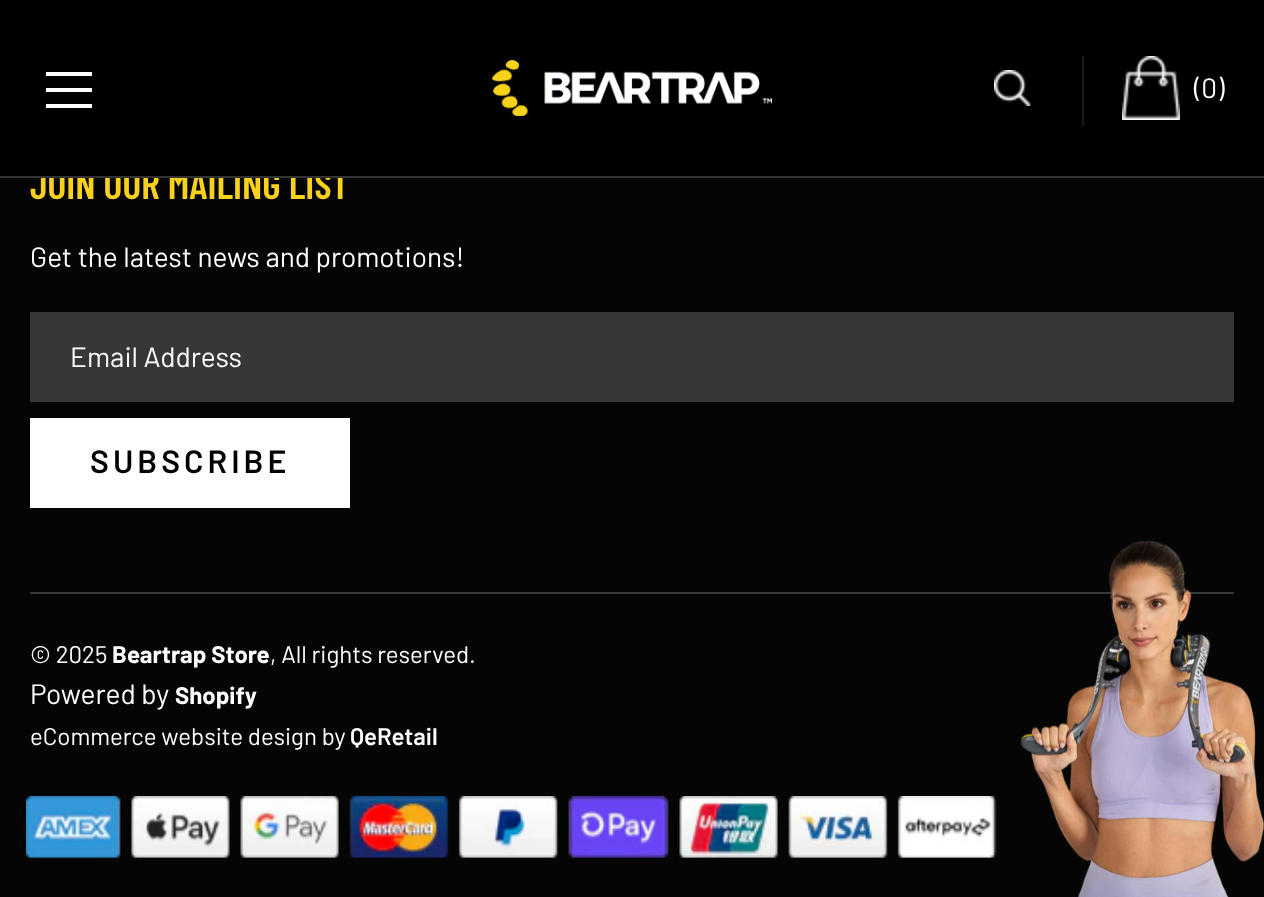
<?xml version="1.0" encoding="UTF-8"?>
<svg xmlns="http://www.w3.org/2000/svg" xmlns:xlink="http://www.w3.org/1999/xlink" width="1264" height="897">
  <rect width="100%" height="100%" fill="#050505" />
  <rect x="30" y="312" width="1204" height="90" fill="#373737" />
  <rect x="30" y="418" width="320" height="90" fill="#ffffff" />
  <rect x="30" y="592" width="1204" height="2" fill="#37393b" />
  <image x="26" y="796" width="971" height="62" xlink:href="image4.png" />
  <image x="1020" y="540" width="244" height="357" xlink:href="image5.png" />
  <text x="30" y="199" style="font-family: Barlow Condensed; font-size: 40px; font-weight: 600; fill: #f7d11d">JOIN OUR MAILING LIST</text>
  <rect width="1264" height="176" fill="#000000" />
  <rect x="1082" y="56" width="2" height="70" fill="#1a1a1a" />
  <text x="1194" y="98" style="font-family: Barlow; font-size: 28px; fill: #ffffff">(0)</text>
  <image x="1122" y="56" width="58" height="64" xlink:href="image3.png" />
  <image x="994" y="70" width="37" height="36" xlink:href="image2.png" />
  <image x="492" y="60" width="280" height="56" xlink:href="image1.png" />
  <rect x="46" y="104" width="46" height="4" fill="#ffffff" />
  <rect x="46" y="88" width="46" height="4" fill="#ffffff" />
  <rect x="46" y="72" width="46" height="4" fill="#ffffff" />
  <rect y="176" width="1264" height="2" fill="#333333" />
  <text x="30" y="267" style="font-family: Barlow; font-size: 28px; fill: #ffffff">Get the latest news and promotions!</text>
  <text x="70" y="367" style="font-family: Barlow; font-size: 28px; fill: #ffffff">Email Address</text>
  <text x="90" y="473" style="font-family: Barlow; font-size: 32px; font-weight: 600; letter-spacing: 4px; fill: #000000">SUBSCRIBE</text>
  <text x="30" y="663" style="font-family: Barlow; font-size: 24px; fill: #ffffff">© 2025</text>
  <text x="112" y="663" style="font-family: Barlow; font-size: 24px; font-weight: bold; fill: #ffffff">Beartrap Store</text>
  <text x="270" y="663" style="font-family: Barlow; font-size: 24px; fill: #ffffff">, All rights reserved.</text>
  <text x="30" y="704" style="font-family: Barlow; font-size: 28px; fill: #ffffff">Powered by</text>
  <text x="175" y="704" style="font-family: Barlow; font-size: 24px; font-weight: bold; fill: #ffffff">Shopify</text>
  <text x="30" y="745" style="font-family: Barlow; font-size: 24px; fill: #ffffff">eCommerce website design by</text>
  <text x="350" y="745" style="font-family: Barlow; font-size: 24px; font-weight: 600; fill: #ffffff">QeRetail</text>
</svg>
